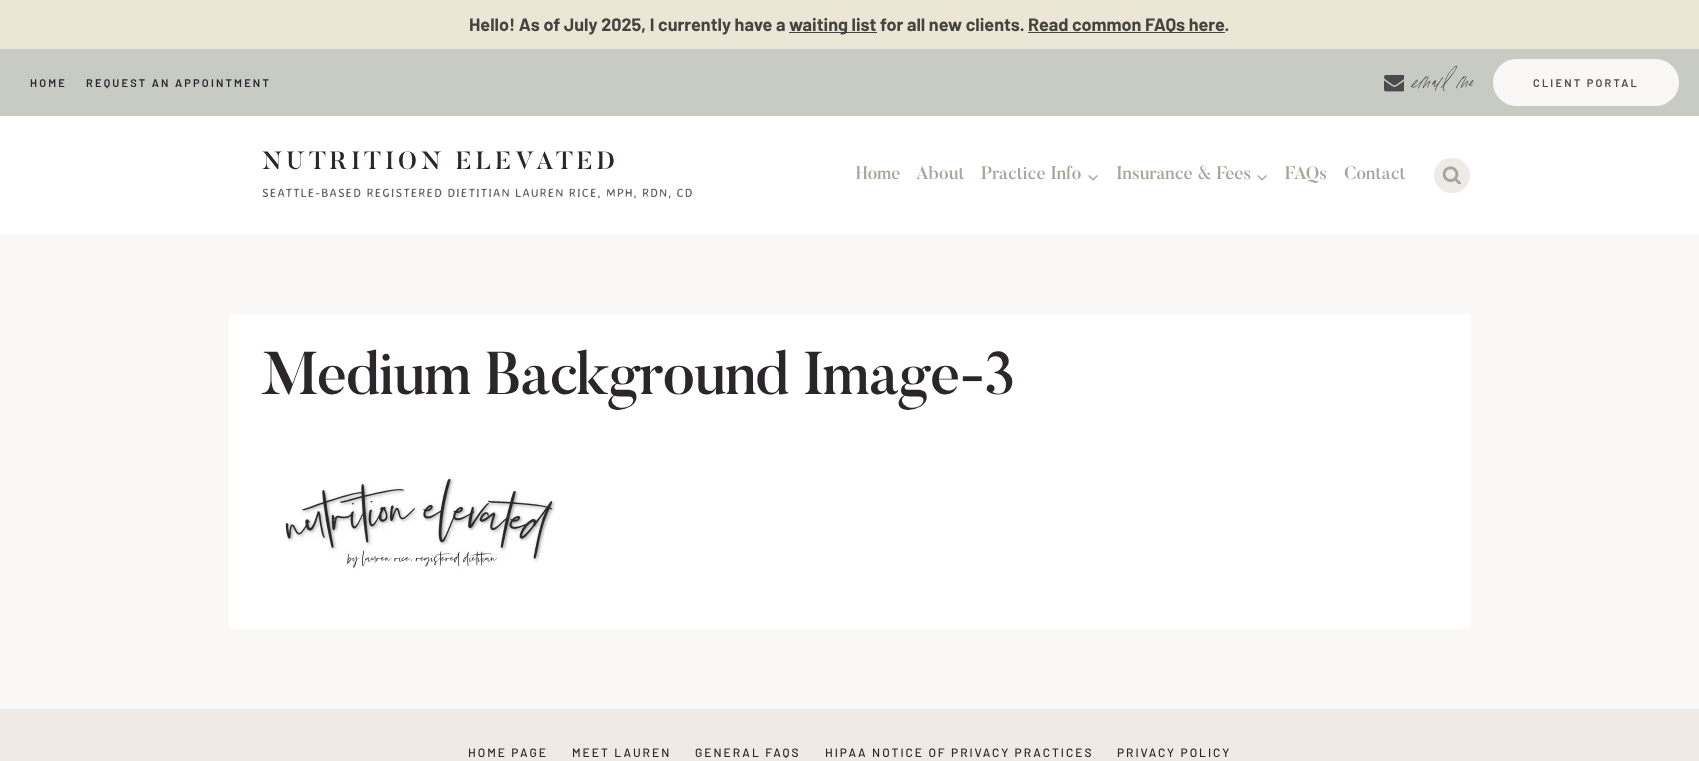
<?xml version="1.0" encoding="UTF-8"?>
<svg xmlns="http://www.w3.org/2000/svg" xmlns:xlink="http://www.w3.org/1999/xlink" width="1699" height="761">
  <rect width="100%" height="100%" fill="#f9f8f6" />
  <rect width="1699" height="49" fill="#ece6d7" />
  <rect x="789" y="32" width="88" height="1" fill="#46443f" />
  <rect x="1028" y="32" width="197" height="1" fill="#46443f" />
  <rect y="116" width="1699" height="118" fill="#ffffff" />
  <rect y="49" width="1699" height="67" fill="#c8cbc3" />
  <image x="1384" y="75" width="20" height="17" xlink:href="image1.png" />
  <rect x="1493" y="59" width="186" height="47" rx="23.5" fill="#f9f8f6" />
  <image x="1088" y="175" width="10" height="6" xlink:href="image2.png" />
  <image x="1257" y="175" width="10" height="6" xlink:href="image2.png" />
  <rect x="1434" y="158" width="36" height="35" rx="17.5" fill="#efeae5" />
  <image x="1442" y="166" width="19" height="18" xlink:href="image3.png" />
  <rect x="229" y="314" width="1242" height="315" rx="4" fill="#ffffff" />
  <image x="285" y="475" width="270" height="96" xlink:href="image4.png" />
  <rect y="709" width="1699" height="52" fill="#efeae5" />
  <text x="469" y="31" style="font-family: Barlow; font-size: 18px; font-weight: bold; fill: #46443f">Hello! As of July 2025, I currently have a</text>
  <text x="789" y="31" style="font-family: Barlow; font-size: 18px; font-weight: bold; fill: #46443f">waiting list for all new clients.</text>
  <text x="1028" y="31" style="font-family: Barlow; font-size: 18px; font-weight: bold; fill: #46443f">Read common FAQs here.</text>
  <text x="30" y="87" style="font-family: Barlow; font-size: 11px; font-weight: 600; letter-spacing: 2.2px; fill: #2a262a">HOME</text>
  <text x="86" y="87" style="font-family: Barlow; font-size: 11px; font-weight: 600; letter-spacing: 2.2px; fill: #2a262a">REQUEST AN APPOINTMENT</text>
  <text x="1410" y="91" style="font-family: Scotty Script; font-size: 32px; fill: #4d4a4d">email me</text>
  <text x="1533" y="87" style="font-family: Barlow; font-size: 11px; font-weight: 600; letter-spacing: 2.2px; fill: #4d4a4d">CLIENT PORTAL</text>
  <text x="262" y="169" style="font-family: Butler; font-size: 25px; font-weight: 500; letter-spacing: 4px; fill: #2a262a">NUTRITION ELEVATED</text>
  <text x="262" y="197" style="font-family: Averia Sans Libre; font-size: 12px; letter-spacing: 1px; fill: #60635e">SEATTLE-BASED REGISTERED DIETITIAN LAUREN RICE, MPH, RDN, CD</text>
  <text x="856" y="179" style="font-family: Butler; font-size: 18px; font-weight: 500; fill: #a1a799">Home</text>
  <text x="916" y="179" style="font-family: Butler; font-size: 18px; font-weight: 500; fill: #a1a799">About</text>
  <text x="981" y="179" style="font-family: Butler; font-size: 18px; font-weight: 500; fill: #a1a799">Practice Info</text>
  <text x="1116" y="179" style="font-family: Butler; font-size: 18px; font-weight: 500; fill: #a1a799">Insurance &amp; Fees</text>
  <text x="1285" y="179" style="font-family: Butler; font-size: 18px; font-weight: 500; fill: #a1a799">FAQs</text>
  <text x="1344" y="179" style="font-family: Butler; font-size: 18px; font-weight: 500; fill: #a1a799">Contact</text>
  <text x="261" y="394" style="font-family: Butler; font-size: 60px; font-weight: 500; letter-spacing: -1.2px; fill: #2a262a">Medium Background Image-3</text>
  <text x="468" y="757" style="font-family: Barlow; font-size: 12px; font-weight: 500; letter-spacing: 2px; fill: #2a262a">HOME PAGE</text>
  <text x="572" y="757" style="font-family: Barlow; font-size: 12px; font-weight: 500; letter-spacing: 2px; fill: #2a262a">MEET LAUREN</text>
  <text x="695" y="757" style="font-family: Barlow; font-size: 12px; font-weight: 500; letter-spacing: 2px; fill: #2a262a">GENERAL FAQS</text>
  <text x="825" y="757" style="font-family: Barlow; font-size: 12px; font-weight: 500; letter-spacing: 2px; fill: #2a262a">HIPAA NOTICE OF PRIVACY PRACTICES</text>
  <text x="1117" y="757" style="font-family: Barlow; font-size: 12px; font-weight: 500; letter-spacing: 2px; fill: #2a262a">PRIVACY POLICY</text>
</svg>
